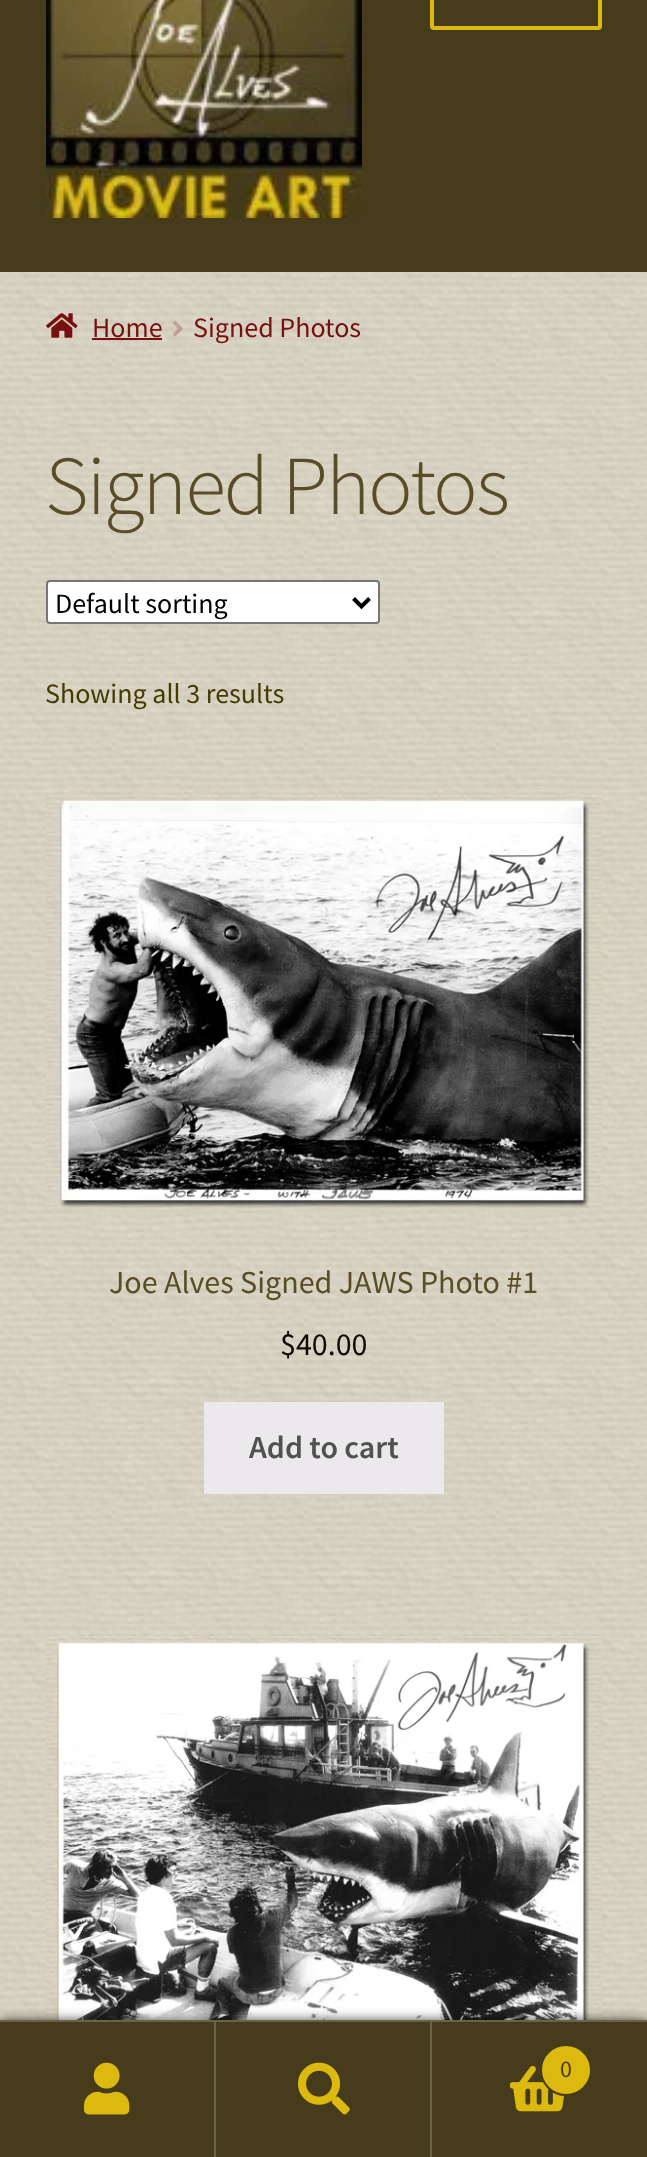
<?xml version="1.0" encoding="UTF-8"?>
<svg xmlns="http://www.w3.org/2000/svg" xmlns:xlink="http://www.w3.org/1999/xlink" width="647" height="2157">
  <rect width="100%" height="100%" fill="#ffffff" />
  <image x="0" y="272" width="647" height="1748" xlink:href="image1.png" />
  <rect width="647" height="272" fill="#463c1b" />
  <image x="46" y="0" width="316" height="218" xlink:href="image2.png" />
  <rect x="432" y="-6" width="168" height="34" rx="2" fill="none" stroke="#dbb90f" stroke-width="4" />
  <image x="46" y="313" width="32" height="25" xlink:href="image3.png" />
  <rect x="92" y="338" width="70" height="2" fill="#771010" />
  <image x="173" y="321" width="10" height="16" xlink:href="image4.png" />
  <rect x="47" y="581" width="332" height="42" rx="3" fill="#ffffff" stroke="#767676" stroke-width="2" />
  <path d="M 353.5 598.5 l 8 8 l 8 -8" fill="none" stroke="#000000" stroke-width="4" />
  <image x="46" y="790" width="556" height="420" xlink:href="image5.png" />
  <rect x="204" y="1402" width="240" height="92" fill="#ebe9eb" />
  <image x="46" y="1636" width="556" height="384" xlink:href="image6.png" />
  <rect y="2020" width="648" height="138" fill="#000000" fill-opacity="0.7" filter="blur(6px)" />
  <rect y="2020" width="647" height="2" fill="#6b6349" />
  <rect y="2022" width="214" height="135" fill="#463c1b" />
  <rect x="214" y="2022" width="2" height="135" fill="#6b6349" />
  <image x="84" y="2062" width="46" height="53" xlink:href="image7.png" />
  <rect x="216" y="2022" width="214" height="135" fill="#463c1b" />
  <rect x="430" y="2022" width="2" height="135" fill="#6b6349" />
  <image x="298" y="2062" width="52" height="53" xlink:href="image8.png" />
  <rect x="432" y="2022" width="215" height="135" fill="#463c1b" />
  <image x="510" y="2065" width="55" height="47" xlink:href="image9.png" />
  <circle cx="566" cy="2070" r="25" fill="#dbb90f" stroke="#463c1b" stroke-width="2" />
  <text x="92" y="337" style="font-family: Source Sans Pro; font-size: 28px; fill: #771010">Home</text>
  <text x="193" y="337" style="font-family: Source Sans Pro; font-size: 28px; fill: #771010">Signed Photos</text>
  <text x="45" y="514" style="font-family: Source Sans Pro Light; font-size: 83.75px; font-weight: 300; letter-spacing: -2px; fill: #594d27">Signed Photos</text>
  <text x="55" y="613" style="font-family: Source Sans Pro; font-size: 28px; fill: #000000">Default sorting</text>
  <text x="45" y="703" style="font-family: Source Sans Pro; font-size: 28px; fill: #443a02">Showing all 3 results</text>
  <text x="109" y="1293" style="font-family: Source Sans Pro; font-size: 32px; fill: #594d27">Joe Alves Signed JAWS Photo #1</text>
  <text x="280" y="1355" style="font-family: Source Sans Pro; font-size: 32px; fill: #0f0908">$40.00</text>
  <text x="249" y="1458" style="font-family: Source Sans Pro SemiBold; font-size: 32px; font-weight: 600; fill: #515151">Add to cart</text>
  <text x="560" y="2077" style="font-family: Source Sans Pro; font-size: 24px; fill: #463c1b">0</text>
</svg>
